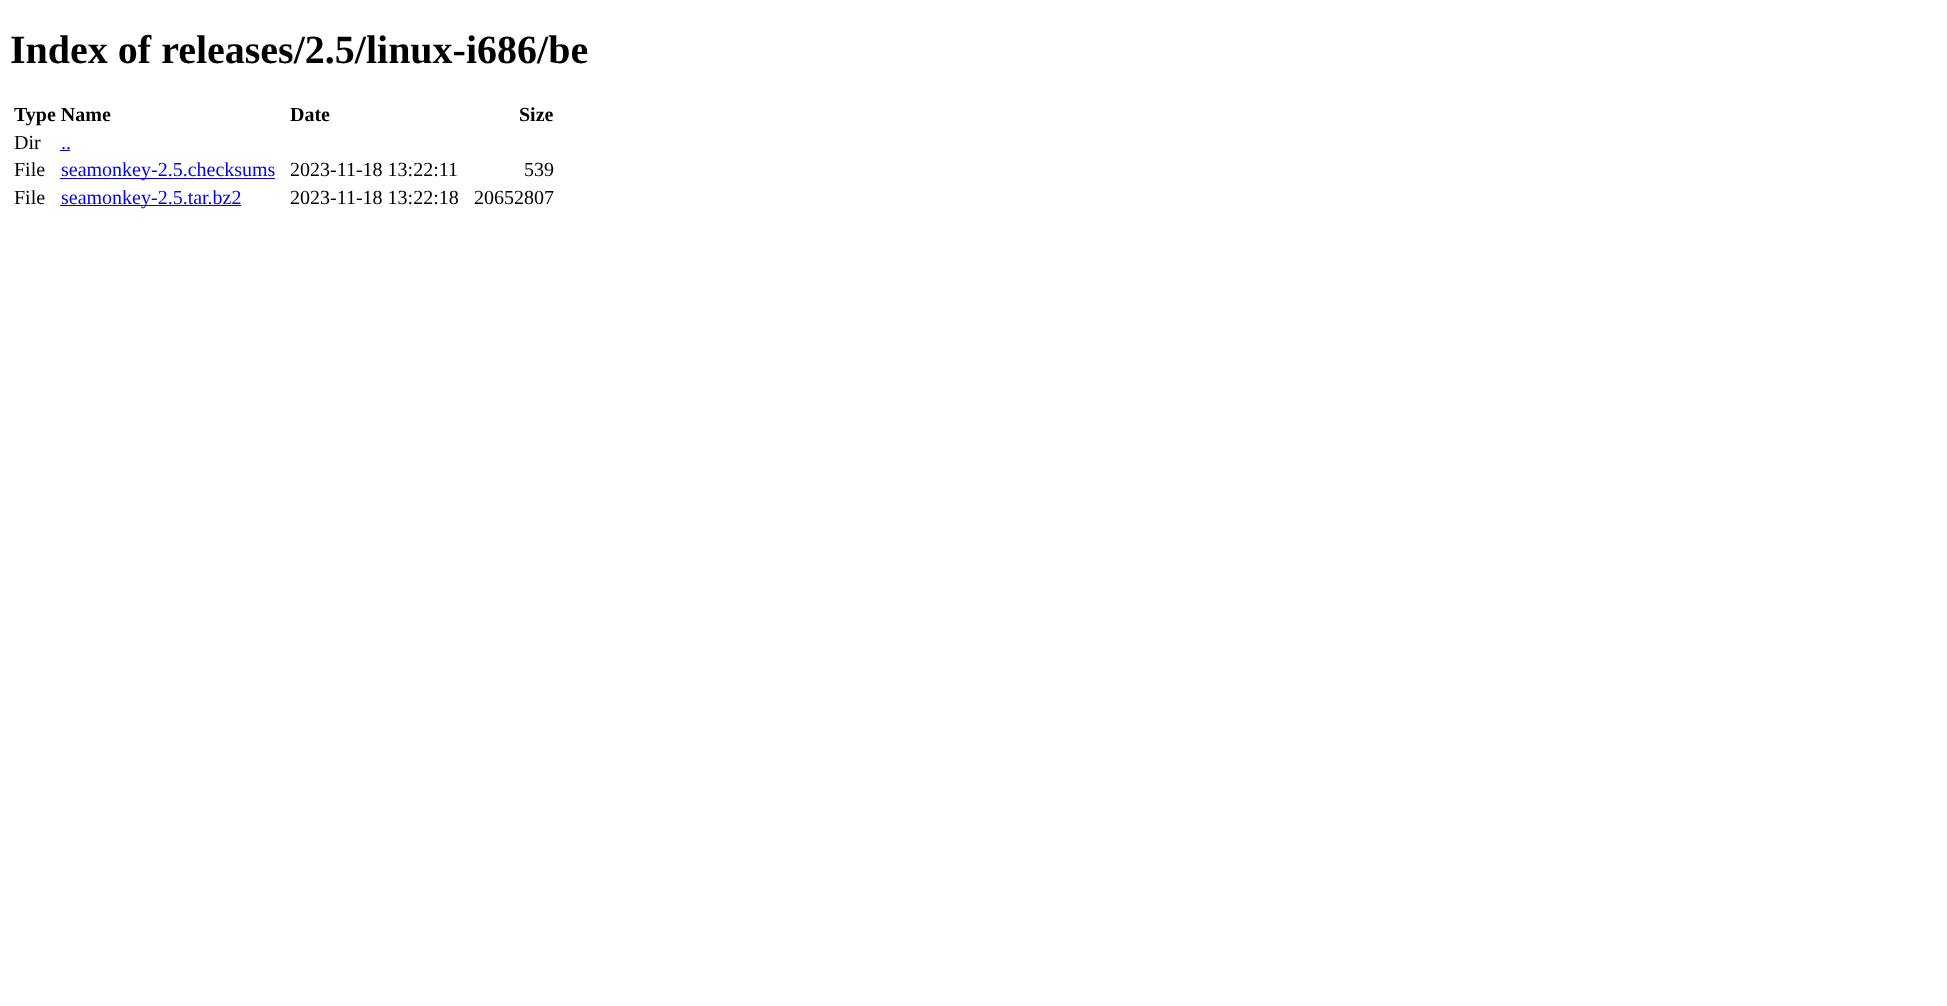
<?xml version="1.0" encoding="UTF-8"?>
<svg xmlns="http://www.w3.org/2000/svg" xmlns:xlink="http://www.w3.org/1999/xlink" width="1947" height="1006">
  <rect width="100%" height="100%" fill="#ffffff" />
  <rect x="60" y="150" width="10" height="1" fill="#0000ee" />
  <rect x="60" y="178" width="215" height="1" fill="#0000ee" />
  <rect x="60" y="205" width="181" height="1" fill="#0000ee" />
  <text x="10" y="63" style="font-family: Liberation Serif; font-size: 40px; font-weight: bold; fill: #000000">Index of releases/2.5/linux-i686/be</text>
  <text x="14" y="121" style="font-family: Liberation Serif; font-size: 20px; font-weight: bold; fill: #000000">Type Name</text>
  <text x="290" y="121" style="font-family: Liberation Serif; font-size: 20px; font-weight: bold; fill: #000000">Date</text>
  <text x="519" y="121" style="font-family: Liberation Serif; font-size: 20px; font-weight: bold; fill: #000000">Size</text>
  <text x="14" y="149" style="font-family: Liberation Serif; font-size: 20px; fill: #000000">Dir</text>
  <text x="61" y="149" style="font-family: Liberation Serif; font-size: 20px; fill: #0000ee">..</text>
  <text x="14" y="176" style="font-family: Liberation Serif; font-size: 20px; fill: #000000">File</text>
  <text x="61" y="176" style="font-family: Liberation Serif; font-size: 20px; fill: #0000ee">seamonkey-2.5.checksums</text>
  <text x="290" y="176" style="font-family: Liberation Serif; font-size: 20px; fill: #000000">2023-11-18 13:22:11</text>
  <text x="524" y="176" style="font-family: Liberation Serif; font-size: 20px; fill: #000000">539</text>
  <text x="14" y="204" style="font-family: Liberation Serif; font-size: 20px; fill: #000000">File</text>
  <text x="61" y="204" style="font-family: Liberation Serif; font-size: 20px; fill: #0000ee">seamonkey-2.5.tar.bz2</text>
  <text x="290" y="204" style="font-family: Liberation Serif; font-size: 20px; fill: #000000">2023-11-18 13:22:18</text>
  <text x="474" y="204" style="font-family: Liberation Serif; font-size: 20px; fill: #000000">20652807</text>
</svg>
